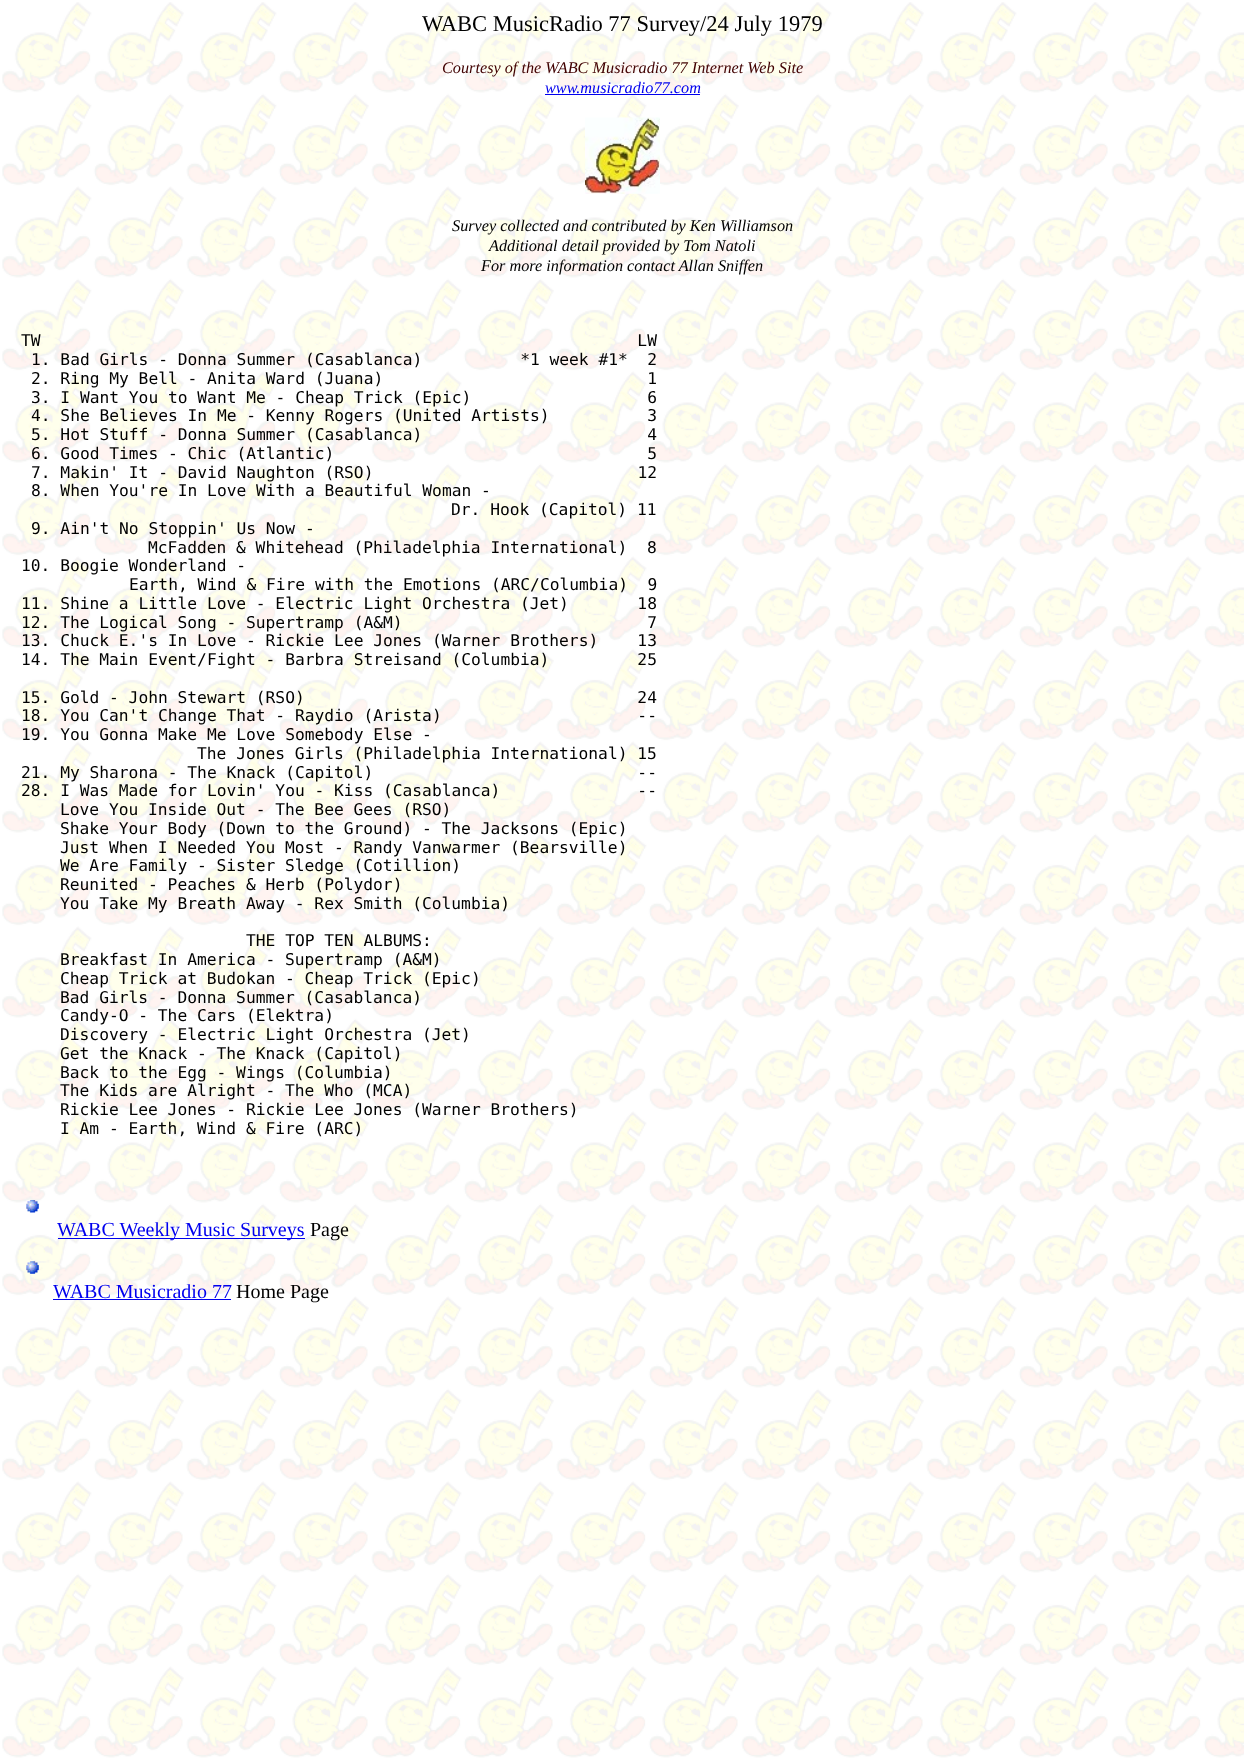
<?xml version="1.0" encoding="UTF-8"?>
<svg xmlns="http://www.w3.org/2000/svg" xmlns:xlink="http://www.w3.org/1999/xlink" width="1244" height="1758">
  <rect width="100%" height="100%" fill="#ffffff" />
  <image x="2" y="2" width="1242" height="1756" xlink:href="image1.png" />
  <rect x="545" y="94" width="155" height="1" fill="#0000ee" />
  <image x="585" y="117" width="75" height="77" xlink:href="image2.png" />
  <image x="26" y="1200" width="13" height="13" xlink:href="image3.png" />
  <rect x="58" y="1238" width="247" height="1" fill="#0000ee" />
  <image x="26" y="1261" width="13" height="13" xlink:href="image4.png" />
  <rect x="53" y="1299" width="178" height="1" fill="#0000ee" />
  <text x="422" y="31" style="font-family: Liberation Serif; font-size: 22.5px; fill: #000000">WABC MusicRadio 77 Survey/24 July 1979</text>
  <text x="442" y="73" style="font-family: Liberation Serif; font-size: 16.25px; font-style: italic; fill: #400000">Courtesy of the WABC Musicradio 77 Internet Web Site</text>
  <text x="545" y="93" style="font-family: Liberation Serif; font-size: 16.25px; font-style: italic; fill: #0000ee">www.musicradio77.com</text>
  <text x="452" y="231" style="font-family: Liberation Serif; font-size: 16.25px; font-style: italic; fill: #000000">Survey collected and contributed by Ken Williamson</text>
  <text x="489" y="251" style="font-family: Liberation Serif; font-size: 16.25px; font-style: italic; fill: #000000">Additional detail provided by Tom Natoli</text>
  <text x="481" y="271" style="font-family: Liberation Serif; font-size: 16.25px; font-style: italic; fill: #000000">For more information contact Allan Sniffen</text>
  <text x="21" y="346" style="font-family: DejaVu Sans Mono; font-size: 16.25px; fill: #000000" xml:space="preserve">TW                                                             LW</text>
  <text x="31" y="365" style="font-family: DejaVu Sans Mono; font-size: 16.25px; fill: #000000" xml:space="preserve">1. Bad Girls - Donna Summer (Casablanca)          *1 week #1*  2</text>
  <text x="31" y="384" style="font-family: DejaVu Sans Mono; font-size: 16.25px; fill: #000000" xml:space="preserve">2. Ring My Bell - Anita Ward (Juana)                           1</text>
  <text x="31" y="403" style="font-family: DejaVu Sans Mono; font-size: 16.25px; fill: #000000" xml:space="preserve">3. I Want You to Want Me - Cheap Trick (Epic)                  6</text>
  <text x="31" y="421" style="font-family: DejaVu Sans Mono; font-size: 16.25px; fill: #000000" xml:space="preserve">4. She Believes In Me - Kenny Rogers (United Artists)          3</text>
  <text x="31" y="440" style="font-family: DejaVu Sans Mono; font-size: 16.25px; fill: #000000" xml:space="preserve">5. Hot Stuff - Donna Summer (Casablanca)                       4</text>
  <text x="31" y="459" style="font-family: DejaVu Sans Mono; font-size: 16.25px; fill: #000000" xml:space="preserve">6. Good Times - Chic (Atlantic)                                5</text>
  <text x="31" y="478" style="font-family: DejaVu Sans Mono; font-size: 16.25px; fill: #000000" xml:space="preserve">7. Makin' It - David Naughton (RSO)                           12</text>
  <text x="31" y="496" style="font-family: DejaVu Sans Mono; font-size: 16.25px; fill: #000000">8. When You're In Love With a Beautiful Woman -</text>
  <text x="451" y="515" style="font-family: DejaVu Sans Mono; font-size: 16.25px; fill: #000000">Dr. Hook (Capitol) 11</text>
  <text x="31" y="534" style="font-family: DejaVu Sans Mono; font-size: 16.25px; fill: #000000">9. Ain't No Stoppin' Us Now -</text>
  <text x="148" y="553" style="font-family: DejaVu Sans Mono; font-size: 16.25px; fill: #000000" xml:space="preserve">McFadden &amp; Whitehead (Philadelphia International)  8</text>
  <text x="21" y="571" style="font-family: DejaVu Sans Mono; font-size: 16.25px; fill: #000000">10. Boogie Wonderland -</text>
  <text x="129" y="590" style="font-family: DejaVu Sans Mono; font-size: 16.25px; fill: #000000" xml:space="preserve">Earth, Wind &amp; Fire with the Emotions (ARC/Columbia)  9</text>
  <text x="21" y="609" style="font-family: DejaVu Sans Mono; font-size: 16.25px; fill: #000000" xml:space="preserve">11. Shine a Little Love - Electric Light Orchestra (Jet)       18</text>
  <text x="21" y="628" style="font-family: DejaVu Sans Mono; font-size: 16.25px; fill: #000000" xml:space="preserve">12. The Logical Song - Supertramp (A&amp;M)                         7</text>
  <text x="21" y="646" style="font-family: DejaVu Sans Mono; font-size: 16.25px; fill: #000000" xml:space="preserve">13. Chuck E.'s In Love - Rickie Lee Jones (Warner Brothers)    13</text>
  <text x="21" y="665" style="font-family: DejaVu Sans Mono; font-size: 16.25px; fill: #000000" xml:space="preserve">14. The Main Event/Fight - Barbra Streisand (Columbia)         25</text>
  <text x="21" y="703" style="font-family: DejaVu Sans Mono; font-size: 16.25px; fill: #000000" xml:space="preserve">15. Gold - John Stewart (RSO)                                  24</text>
  <text x="21" y="721" style="font-family: DejaVu Sans Mono; font-size: 16.25px; fill: #000000" xml:space="preserve">18. You Can't Change That - Raydio (Arista)                    --</text>
  <text x="21" y="740" style="font-family: DejaVu Sans Mono; font-size: 16.25px; fill: #000000">19. You Gonna Make Me Love Somebody Else -</text>
  <text x="197" y="759" style="font-family: DejaVu Sans Mono; font-size: 16.25px; fill: #000000">The Jones Girls (Philadelphia International) 15</text>
  <text x="21" y="778" style="font-family: DejaVu Sans Mono; font-size: 16.25px; fill: #000000" xml:space="preserve">21. My Sharona - The Knack (Capitol)                           --</text>
  <text x="21" y="796" style="font-family: DejaVu Sans Mono; font-size: 16.25px; fill: #000000" xml:space="preserve">28. I Was Made for Lovin' You - Kiss (Casablanca)              --</text>
  <text x="60" y="815" style="font-family: DejaVu Sans Mono; font-size: 16.25px; fill: #000000">Love You Inside Out - The Bee Gees (RSO)</text>
  <text x="60" y="834" style="font-family: DejaVu Sans Mono; font-size: 16.25px; fill: #000000">Shake Your Body (Down to the Ground) - The Jacksons (Epic)</text>
  <text x="60" y="853" style="font-family: DejaVu Sans Mono; font-size: 16.25px; fill: #000000">Just When I Needed You Most - Randy Vanwarmer (Bearsville)</text>
  <text x="60" y="871" style="font-family: DejaVu Sans Mono; font-size: 16.25px; fill: #000000">We Are Family - Sister Sledge (Cotillion)</text>
  <text x="60" y="890" style="font-family: DejaVu Sans Mono; font-size: 16.25px; fill: #000000">Reunited - Peaches &amp; Herb (Polydor)</text>
  <text x="60" y="909" style="font-family: DejaVu Sans Mono; font-size: 16.25px; fill: #000000">You Take My Breath Away - Rex Smith (Columbia)</text>
  <text x="246" y="946" style="font-family: DejaVu Sans Mono; font-size: 16.25px; fill: #000000">THE TOP TEN ALBUMS:</text>
  <text x="60" y="965" style="font-family: DejaVu Sans Mono; font-size: 16.25px; fill: #000000">Breakfast In America - Supertramp (A&amp;M)</text>
  <text x="60" y="984" style="font-family: DejaVu Sans Mono; font-size: 16.25px; fill: #000000">Cheap Trick at Budokan - Cheap Trick (Epic)</text>
  <text x="60" y="1003" style="font-family: DejaVu Sans Mono; font-size: 16.25px; fill: #000000">Bad Girls - Donna Summer (Casablanca)</text>
  <text x="60" y="1021" style="font-family: DejaVu Sans Mono; font-size: 16.25px; fill: #000000">Candy-O - The Cars (Elektra)</text>
  <text x="60" y="1040" style="font-family: DejaVu Sans Mono; font-size: 16.25px; fill: #000000">Discovery - Electric Light Orchestra (Jet)</text>
  <text x="60" y="1059" style="font-family: DejaVu Sans Mono; font-size: 16.25px; fill: #000000">Get the Knack - The Knack (Capitol)</text>
  <text x="60" y="1078" style="font-family: DejaVu Sans Mono; font-size: 16.25px; fill: #000000">Back to the Egg - Wings (Columbia)</text>
  <text x="60" y="1096" style="font-family: DejaVu Sans Mono; font-size: 16.25px; fill: #000000">The Kids are Alright - The Who (MCA)</text>
  <text x="60" y="1115" style="font-family: DejaVu Sans Mono; font-size: 16.25px; fill: #000000">Rickie Lee Jones - Rickie Lee Jones (Warner Brothers)</text>
  <text x="60" y="1134" style="font-family: DejaVu Sans Mono; font-size: 16.25px; fill: #000000">I Am - Earth, Wind &amp; Fire (ARC)</text>
  <text x="57" y="1236" style="font-family: Liberation Serif; font-size: 20px; fill: #0000ee">WABC Weekly Music Surveys</text>
  <text x="310" y="1236" style="font-family: Liberation Serif; font-size: 20px; fill: #000000">Page</text>
  <text x="53" y="1298" style="font-family: Liberation Serif; font-size: 20px; fill: #0000ee">WABC Musicradio 77</text>
  <text x="236" y="1298" style="font-family: Liberation Serif; font-size: 20px; fill: #000000">Home Page</text>
</svg>
